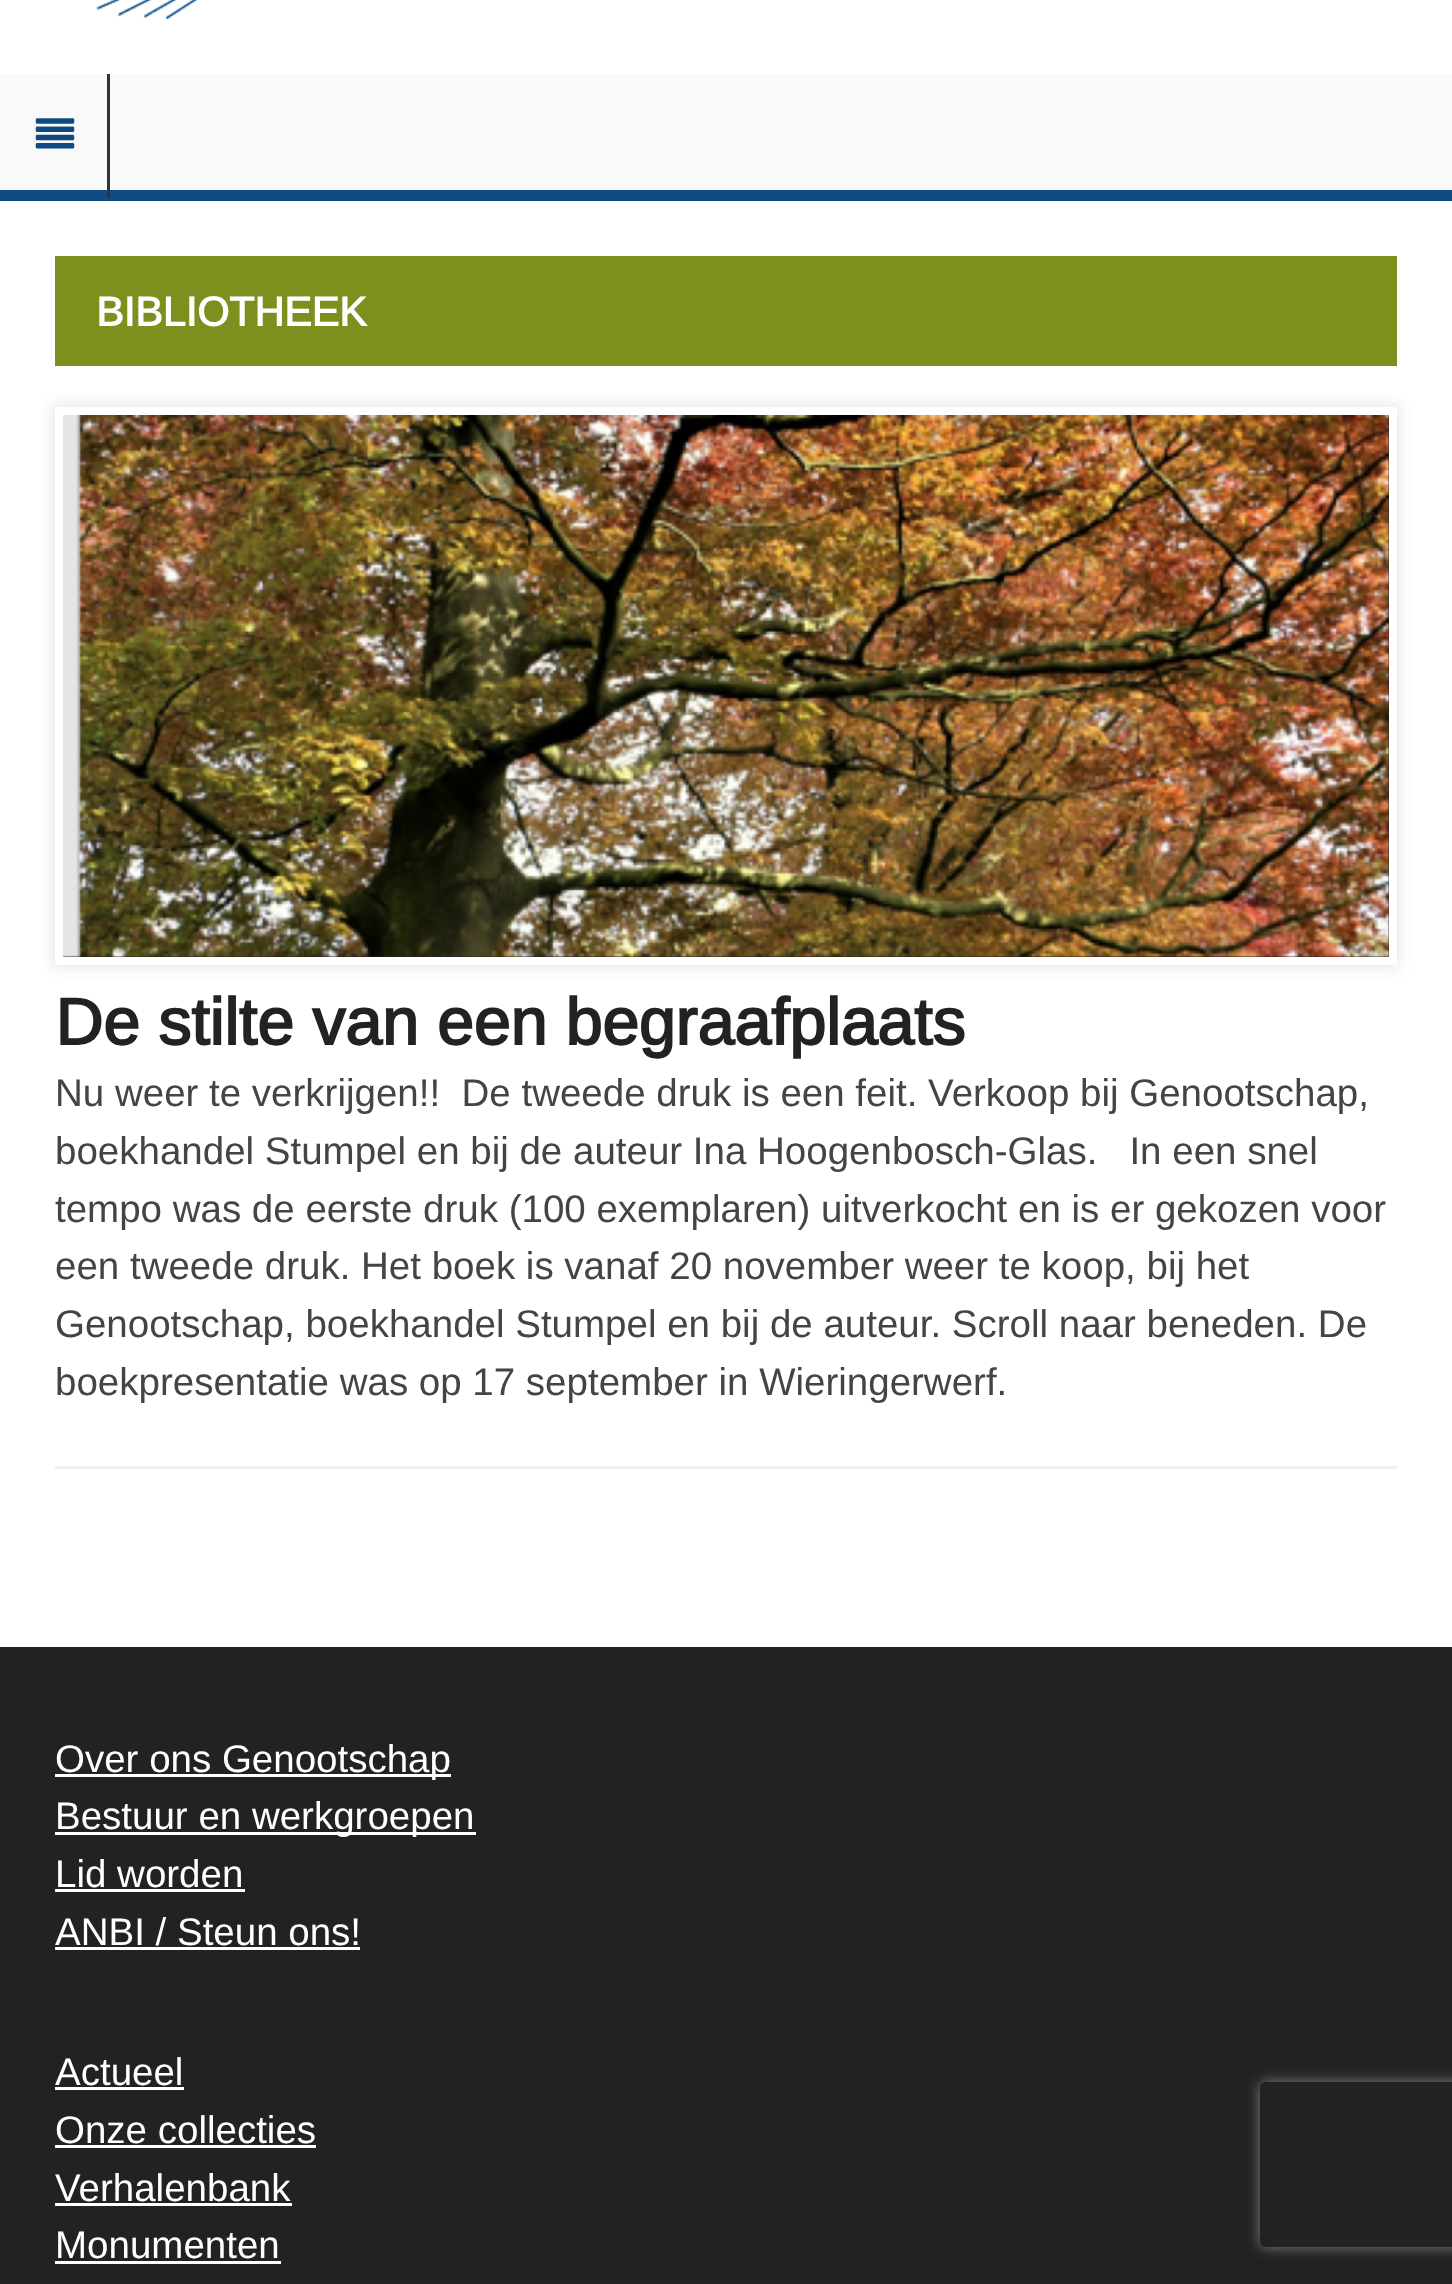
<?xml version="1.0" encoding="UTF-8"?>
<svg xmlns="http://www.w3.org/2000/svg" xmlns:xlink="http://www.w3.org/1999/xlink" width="1452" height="2284">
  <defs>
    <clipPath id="clip1"><path d="M 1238 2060 h 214 v 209 h -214 z m 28 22 h 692 c 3.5 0 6 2.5 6 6 v 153 c 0 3.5 -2.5 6 -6 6 h -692 c -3.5 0 -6 -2.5 -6 -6 v -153 c 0 -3.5 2.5 -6 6 -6 z" clip-rule="evenodd" /></clipPath>
  </defs>
  <rect width="100%" height="100%" fill="#ffffff" />
  <image x="96" y="0" width="101" height="19" xlink:href="image1.png" />
  <rect y="74" width="1452" height="116" fill="#f9f9f9" />
  <rect y="190" width="1452" height="11" fill="#0f4a83" />
  <rect x="107" y="74" width="3" height="124" fill="#333333" />
  <image x="35" y="118" width="40" height="31" xlink:href="image2.png" />
  <rect x="55" y="256" width="1342" height="110" fill="#7d8f1c" />
  <rect x="55" y="1466" width="1342" height="3" fill="#f0f0f0" />
  <rect x="52" y="404" width="1348" height="564" fill="#222222" fill-opacity="0.1" filter="blur(7px)" />
  <rect x="59" y="411" width="1334" height="550" fill="#222222" stroke="#ffffff" stroke-width="8" />
  <image x="63" y="415" width="1326" height="542" xlink:href="image3.png" />
  <rect y="1647" width="1452" height="637" fill="#222222" />
  <rect x="55" y="1774" width="396" height="3" fill="#ffffff" />
  <rect x="55" y="1832" width="421" height="3" fill="#ffffff" />
  <rect x="55" y="1889" width="190" height="3" fill="#ffffff" />
  <rect x="55" y="1947" width="305" height="3" fill="#ffffff" />
  <rect x="55" y="2087" width="129" height="3" fill="#ffffff" />
  <rect x="55" y="2145" width="261" height="3" fill="#ffffff" />
  <rect x="55" y="2203" width="237" height="3" fill="#ffffff" />
  <rect x="55" y="2261" width="226" height="3" fill="#ffffff" />
  <g clip-path="url(#clip1)">
    <rect x="1260" y="2082" width="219" height="165" rx="6" fill="#808080" filter="blur(7px)" />
  </g>
  <text x="96" y="326" style="font-family: Arimo; font-size: 41.25px; font-weight: bold; fill: #ffffff">BIBLIOTHEEK</text>
  <text x="55" y="1045" style="font-family: Arimo; font-size: 66px; font-weight: bold; fill: #222222">De stilte van een begraafplaats</text>
  <text x="55" y="1106" style="font-family: Liberation Sans; font-size: 38.5px; fill: #444444" xml:space="preserve">Nu weer te verkrijgen!!  De tweede druk is een feit. Verkoop bij Genootschap,</text>
  <text x="55" y="1164" style="font-family: Liberation Sans; font-size: 38.5px; fill: #444444" xml:space="preserve">boekhandel Stumpel en bij de auteur Ina Hoogenbosch-Glas.   In een snel</text>
  <text x="55" y="1222" style="font-family: Liberation Sans; font-size: 38.5px; fill: #444444">tempo was de eerste druk (100 exemplaren) uitverkocht en is er gekozen voor</text>
  <text x="55" y="1279" style="font-family: Liberation Sans; font-size: 38.5px; fill: #444444">een tweede druk. Het boek is vanaf 20 november weer te koop, bij het</text>
  <text x="55" y="1337" style="font-family: Liberation Sans; font-size: 38.5px; fill: #444444">Genootschap, boekhandel Stumpel en bij de auteur. Scroll naar beneden. De</text>
  <text x="55" y="1395" style="font-family: Liberation Sans; font-size: 38.5px; fill: #444444">boekpresentatie was op 17 september in Wieringerwerf.</text>
  <text x="55" y="1772" style="font-family: Liberation Sans; font-size: 38.5px; fill: #ffffff">Over ons Genootschap</text>
  <text x="55" y="1829" style="font-family: Liberation Sans; font-size: 38.5px; fill: #ffffff">Bestuur en werkgroepen</text>
  <text x="55" y="1887" style="font-family: Liberation Sans; font-size: 38.5px; fill: #ffffff">Lid worden</text>
  <text x="55" y="1945" style="font-family: Liberation Sans; font-size: 38.5px; fill: #ffffff">ANBI / Steun ons!</text>
  <text x="55" y="2085" style="font-family: Liberation Sans; font-size: 38.5px; fill: #ffffff">Actueel</text>
  <text x="55" y="2143" style="font-family: Liberation Sans; font-size: 38.5px; fill: #ffffff">Onze collecties</text>
  <text x="55" y="2201" style="font-family: Liberation Sans; font-size: 38.5px; fill: #ffffff">Verhalenbank</text>
  <text x="55" y="2258" style="font-family: Liberation Sans; font-size: 38.5px; fill: #ffffff">Monumenten</text>
</svg>
